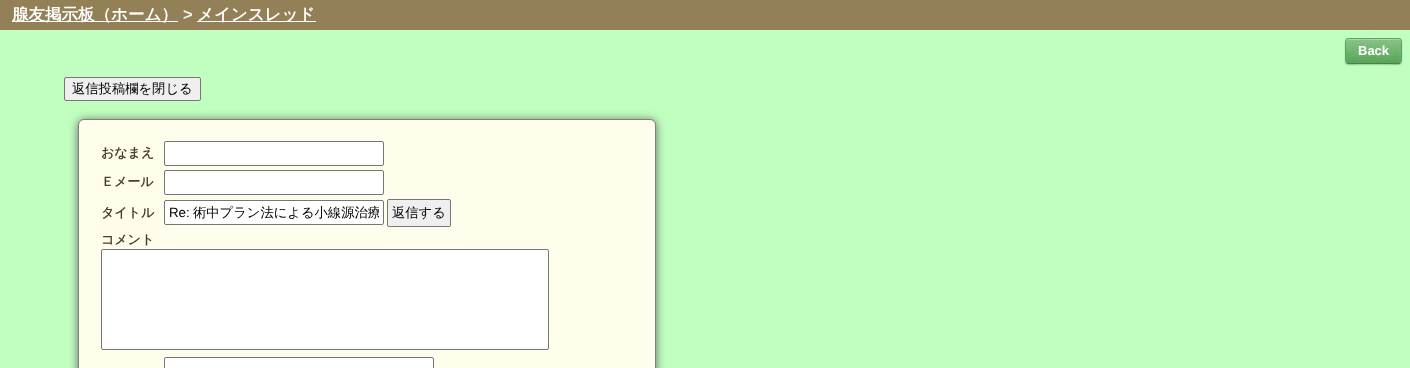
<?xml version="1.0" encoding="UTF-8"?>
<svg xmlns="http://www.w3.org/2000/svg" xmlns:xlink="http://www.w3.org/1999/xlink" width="1410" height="368">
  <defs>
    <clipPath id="clip1"><rect x="169" y="204" width="210" height="18" /></clipPath>
  </defs>
  <rect width="100%" height="100%" fill="#c0ffc0" />
  <rect width="1410" height="30" fill="#938057" />
  <rect x="12" y="21" width="166" height="1" fill="#ffffff" />
  <rect x="197" y="21" width="119" height="1" fill="#ffffff" />
  <rect x="1346" y="41" width="55" height="23" rx="2" fill="#000000" fill-opacity="0.5" filter="blur(1px)" />
  <path d="M 1345 60 c 0 6 7 4 11 4 h 34 c 5 0 12 2 12 -4 c 0 2 -1 3 -3 3 h -51 c -2 0 -3 -1 -3 -3 z" fill="#000000" fill-opacity="0.3" />
  <rect x="1346" y="39" width="55" height="23" rx="2" fill="#57a957" />
  <image x="1346" y="39" width="55" height="23" xlink:href="image1.png" />
  <path d="M 1348 40 h 51 c 1 0 2 1 2 2 c 0 -5 -7 -3 -11 -3 h -34 c -3 0 -10 -2 -10 3 c 0 -1 1 -2 2 -2 z" fill="#ffffff" fill-opacity="0.3" />
  <rect x="1345.5" y="38.5" width="56" height="24" rx="2.5" fill="none" stroke="#57a957" />
  <rect x="64.5" y="77.5" width="136" height="23" rx="1.5" fill="#efefef" stroke="#767676" />
  <rect x="78" y="120" width="578" height="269" rx="6" fill="#666666" filter="blur(5px)" />
  <rect x="78.5" y="119.5" width="577" height="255" rx="5.5" fill="#fffdec" stroke="#808080" />
  <rect x="164.5" y="141.5" width="219" height="24" rx="1.5" fill="#ffffff" stroke="#767676" />
  <rect x="164.5" y="170.5" width="219" height="24" rx="1.5" fill="#ffffff" stroke="#767676" />
  <rect x="164.5" y="200.5" width="219" height="24" rx="1.5" fill="#ffffff" stroke="#767676" />
  <rect x="387.5" y="199.5" width="63" height="27" rx="1.5" fill="#efefef" stroke="#767676" />
  <rect x="101.5" y="249.5" width="447" height="100" rx="1.5" fill="#ffffff" stroke="#767676" />
  <rect x="164.5" y="357.5" width="269" height="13" rx="1.5" fill="#ffffff" stroke="#767676" />
  <text x="12" y="20" style="font-family: WenQuanYi Zen Hei; font-size: 16.5px; font-weight: bold; fill: #ffffff">腺友掲示板（ホーム）</text>
  <text x="183" y="20" style="font-family: Liberation Sans; font-size: 16.5px; font-weight: bold; fill: #eeeeee">&gt;</text>
  <text x="197" y="20" style="font-family: WenQuanYi Zen Hei; font-size: 16.5px; font-weight: bold; fill: #ffffff">メインスレッド</text>
  <text x="1358" y="55" style="font-family: Liberation Sans; font-size: 13px; font-weight: bold; fill: #ffffff">Back</text>
  <text x="72" y="93" style="font-family: WenQuanYi Zen Hei; font-size: 13.3px; font-weight: 500; fill: #000000">返信投稿欄を閉じる</text>
  <text x="101" y="157" style="font-family: WenQuanYi Zen Hei; font-size: 13px; font-weight: bold; fill: #4b3d27">おなまえ</text>
  <text x="101" y="186" style="font-family: WenQuanYi Zen Hei; font-size: 13px; font-weight: bold; fill: #4b3d27">Ｅメール</text>
  <text x="101" y="217" style="font-family: WenQuanYi Zen Hei; font-size: 13px; font-weight: bold; fill: #4b3d27">タイトル</text>
  <text x="169" y="217" style="font-family: Liberation Sans; font-size: 13.3px; fill: #000000">Re:</text>
  <g clip-path="url(#clip1)">
    <text x="193" y="217" style="font-family: WenQuanYi Zen Hei; font-size: 13.3px; font-weight: 500; fill: #000000">術中プラン法による小線源治療</text>
  </g>
  <text x="392" y="217" style="font-family: WenQuanYi Zen Hei; font-size: 13.3px; font-weight: 500; fill: #000000">返信する</text>
  <text x="101" y="244" style="font-family: WenQuanYi Zen Hei; font-size: 13px; font-weight: bold; fill: #4b3d27">コメント</text>
</svg>
